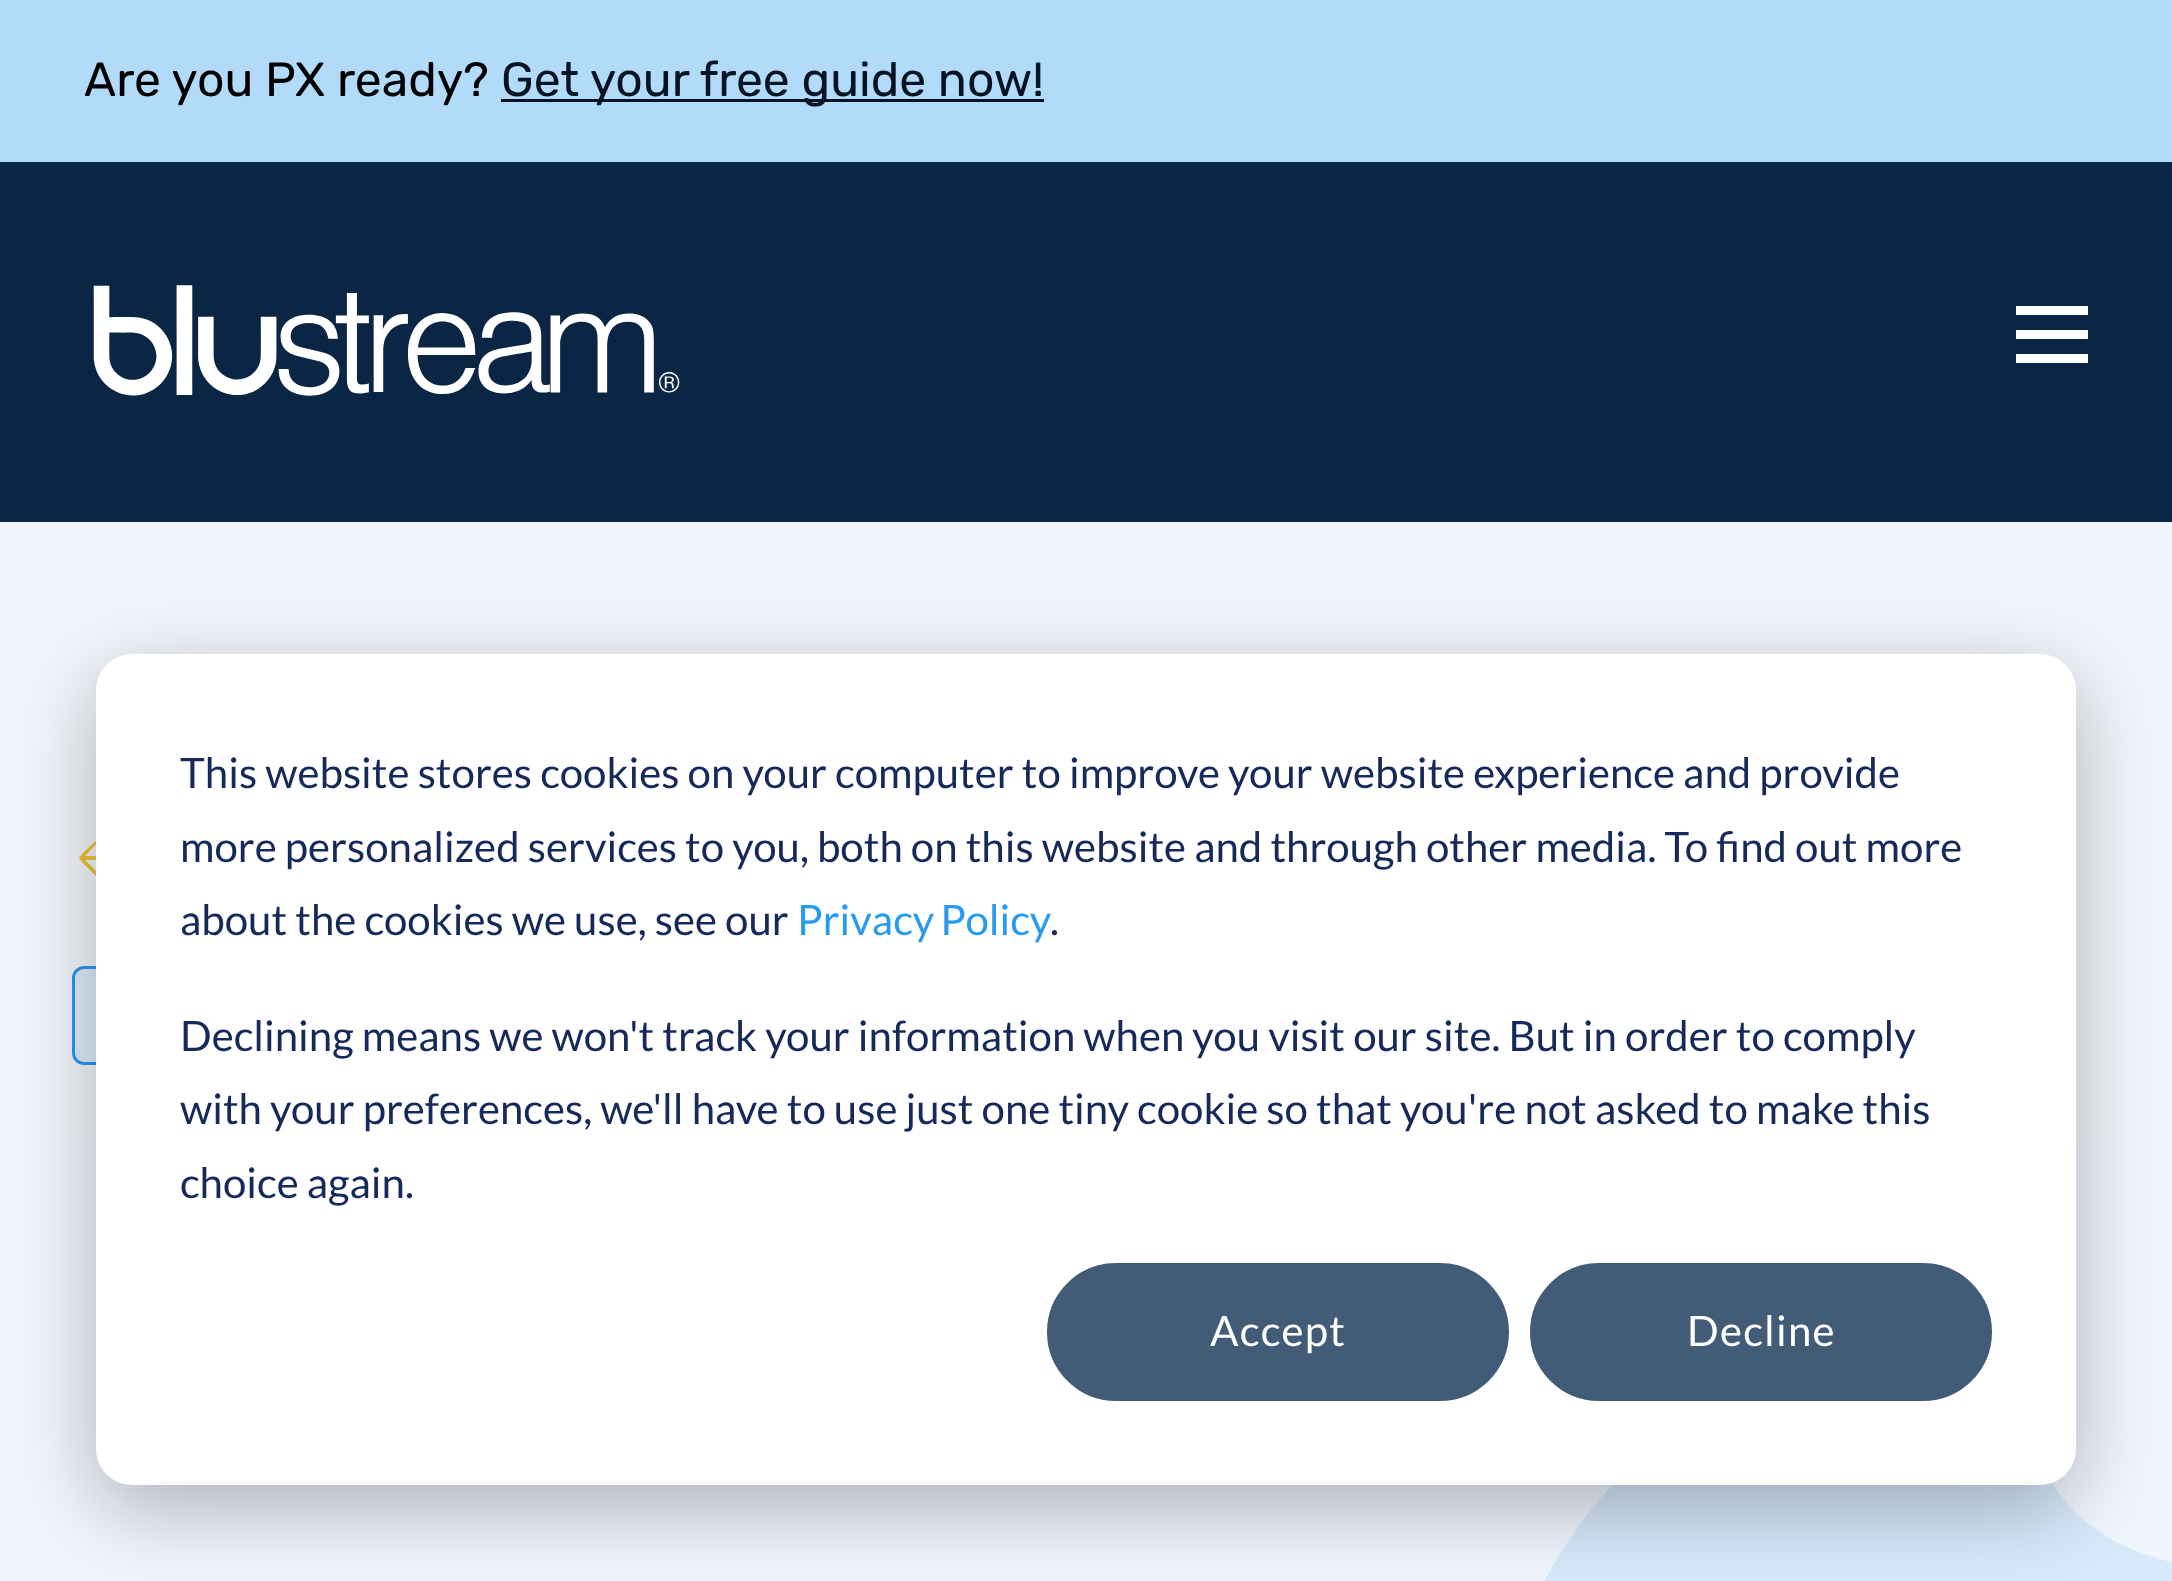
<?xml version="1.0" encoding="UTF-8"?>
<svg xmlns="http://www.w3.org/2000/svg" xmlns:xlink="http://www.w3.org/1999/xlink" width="2172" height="1581">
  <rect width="100%" height="100%" fill="#b2dbfa" />
  <rect x="501" y="99" width="543" height="3" fill="#061323" />
  <rect y="162" width="2172" height="360" fill="#0b2545" />
  <image x="93" y="285" width="587" height="111" xlink:href="image1.png" />
  <rect x="2016" y="330" width="72" height="9" fill="#ffffff" />
  <rect x="2016" y="306" width="72" height="9" fill="#ffffff" />
  <rect x="2016" y="354" width="72" height="9" fill="#ffffff" />
  <rect y="522" width="2172" height="618" fill="#f2f5fb" />
  <rect y="1140" width="2172" height="441" fill="#f1f5fe" />
  <path d="M 1927 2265 c -111 -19 -237 -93 -315 -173 c -161 -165 -165 -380 -33 -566 c 68 -95 209 -203 333 -184 c 89 13 103 95 150 155 c 96 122 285 29 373 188 c 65 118 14 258 -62 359 c -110 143 -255 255 -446 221 z" fill="#d7eafc" />
  <path d="M 101 836 c 1 -1 3 0 2 1 l -18 19 l 50 1 c 1 0 2 1 1 2 h -1 l -50 1 c 2 2 19 18 18 19 c 0 3 -3 0 -6 -2 l -14 -14 c -5 -6 -5 -4 0 -10 z" fill="#f1c233" />
  <rect x="73.5" y="967.5" width="525" height="96" rx="10.5" fill="#deecfa" stroke="#279af1" stroke-width="3" />
  <rect x="96" y="678" width="1980" height="831" rx="36" fill="#000000" fill-opacity="0.28" filter="blur(42px)" />
  <rect x="96" y="654" width="1980" height="831" rx="36" fill="#ffffff" />
  <rect x="1048.5" y="1264.5" width="459" height="135" rx="67.5" fill="#425b76" stroke="#425b76" stroke-width="3" />
  <rect x="1531.5" y="1264.5" width="459" height="135" rx="67.5" fill="#425b76" stroke="#425b76" stroke-width="3" />
  <text x="84" y="96" style="font-family: Rubik; font-size: 48px; fill: #000000">Are you PX ready?</text>
  <text x="501" y="96" style="font-family: Rubik; font-size: 48px; fill: #061323">Get your free guide now!</text>
  <text x="180" y="788" style="font-family: Lato; font-size: 42px; fill: #15295a">This website stores cookies on your computer to improve your website experience and provide</text>
  <text x="180" y="862" style="font-family: Lato; font-size: 42px; fill: #15295a">more personalized services to you, both on this website and through other media. To find out more</text>
  <text x="180" y="935" style="font-family: Lato; font-size: 42px; fill: #15295a">about the cookies we use, see our</text>
  <text x="797" y="935" word-spacing="-2" style="font-family: Lato; font-size: 42px; fill: #279af1">Privacy Policy</text>
  <text x="1050" y="935" style="font-family: Lato; font-size: 42px; fill: #15295a">.</text>
  <text x="180" y="1051" style="font-family: Lato; font-size: 42px; fill: #15295a">Declining means we won't track your information when you visit our site. But in order to comply</text>
  <text x="180" y="1124" style="font-family: Lato; font-size: 42px; fill: #15295a">with your preferences, we'll have to use just one tiny cookie so that you're not asked to make this</text>
  <text x="180" y="1198" style="font-family: Lato; font-size: 42px; fill: #15295a">choice again.</text>
  <text x="1210" y="1346" style="font-family: Lato; font-size: 42px; letter-spacing: 1.25px; fill: #ffffff">Accept</text>
  <text x="1687" y="1346" style="font-family: Lato; font-size: 42px; letter-spacing: 1.25px; fill: #ffffff">Decline</text>
</svg>
